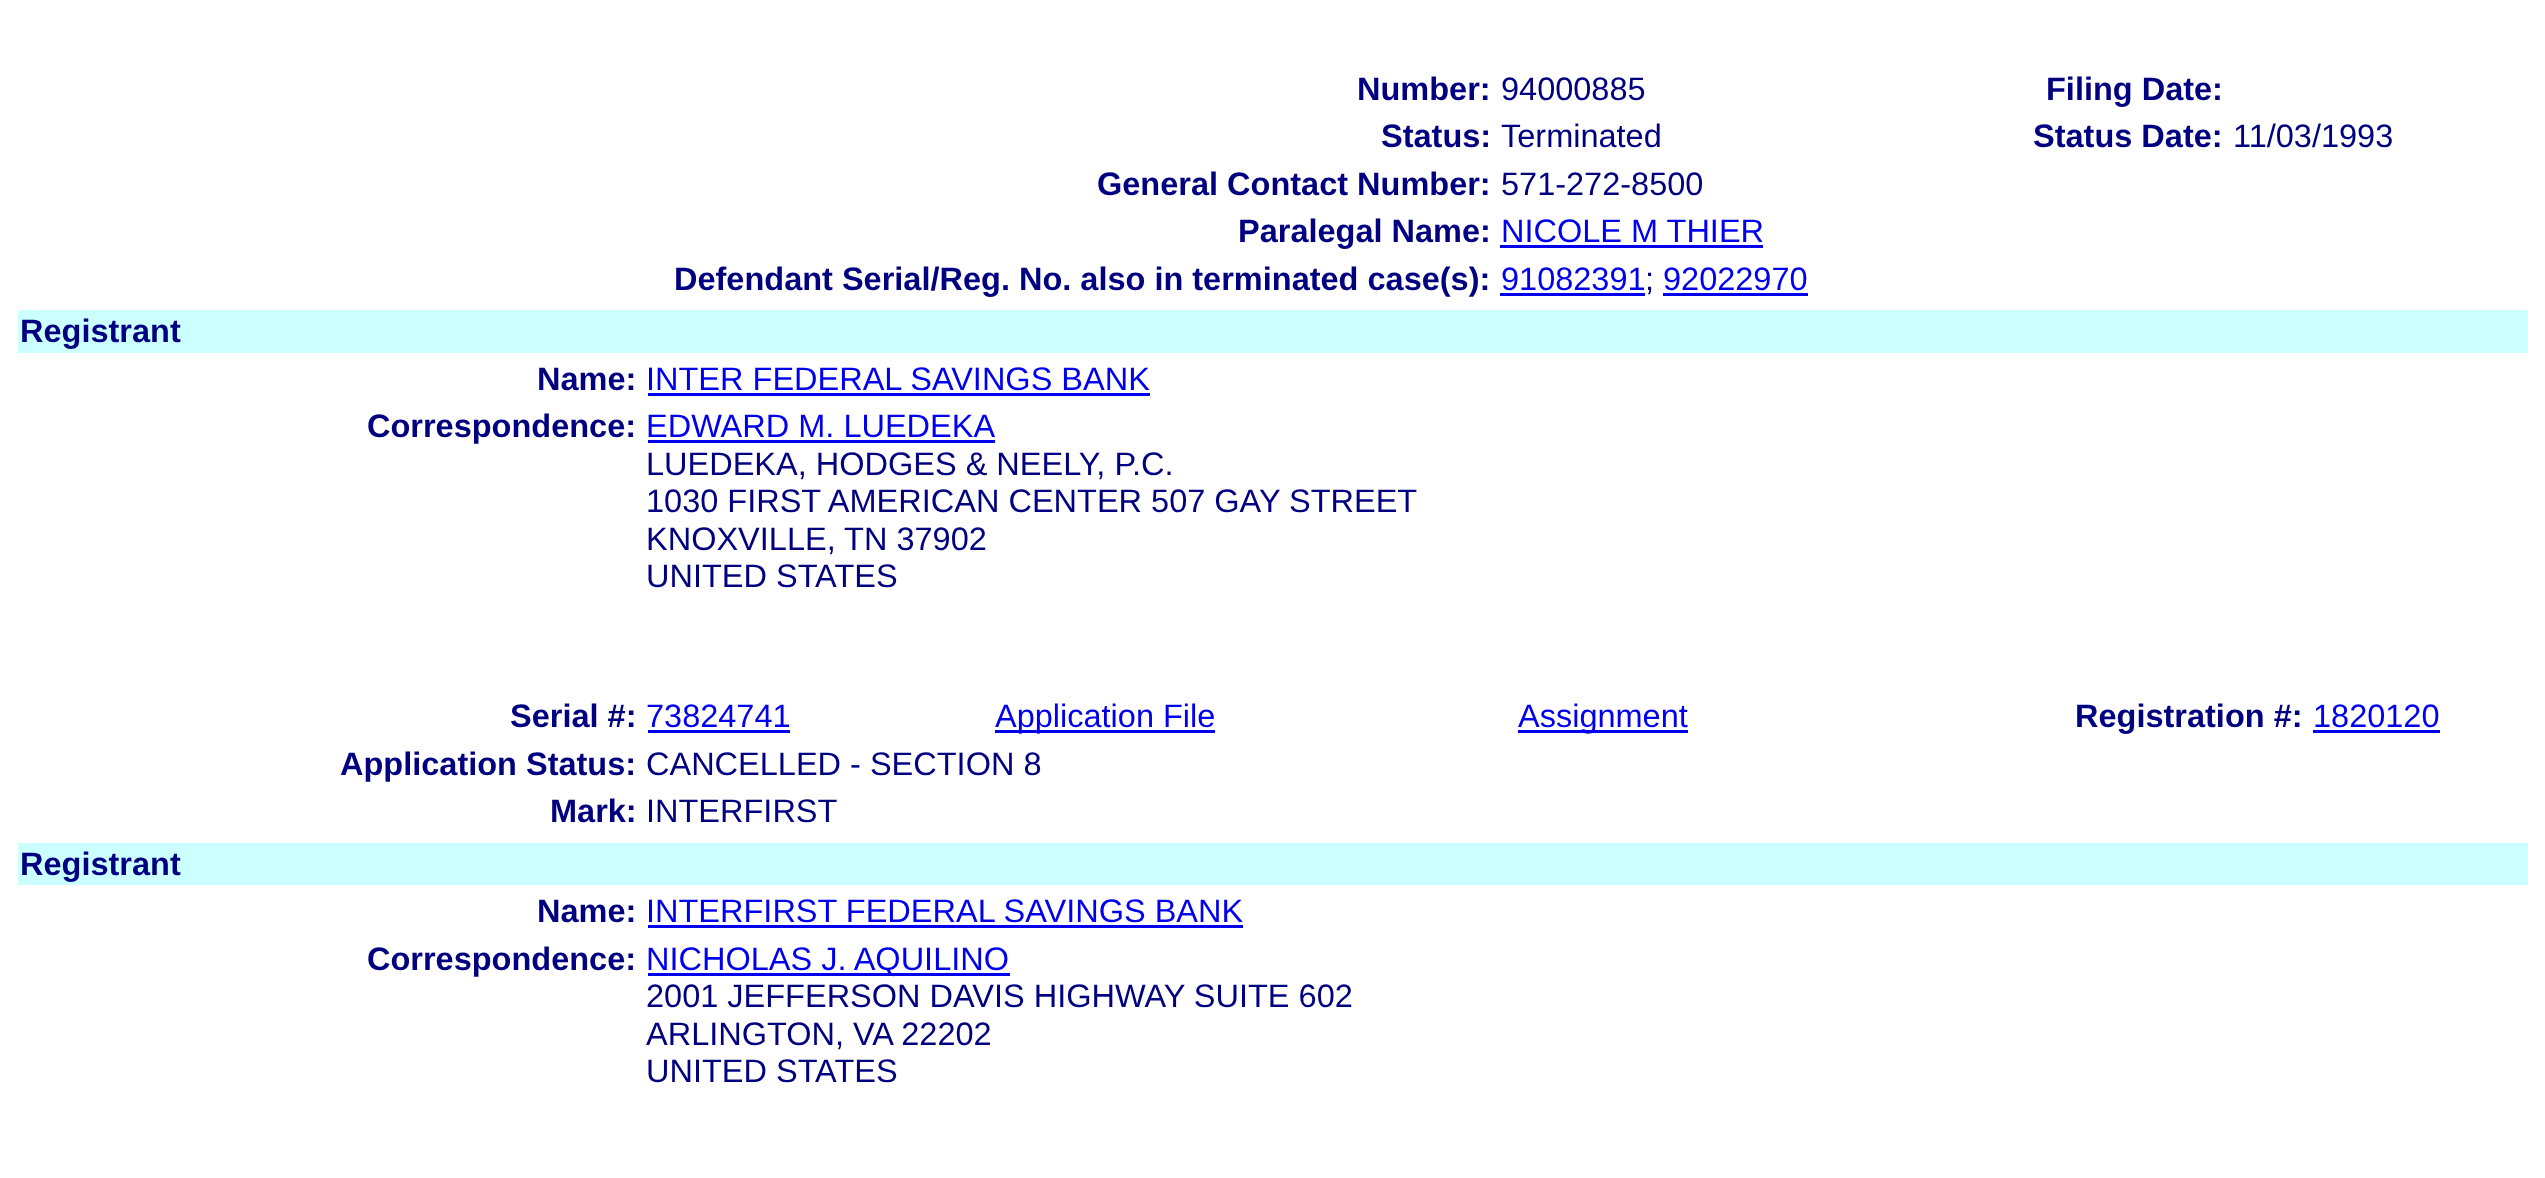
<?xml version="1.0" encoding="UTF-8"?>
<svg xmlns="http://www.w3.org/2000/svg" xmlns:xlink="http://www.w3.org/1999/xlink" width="2545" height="1178">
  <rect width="100%" height="100%" fill="#ffffff" />
  <rect x="1500" y="245" width="263" height="3" fill="#0000ee" />
  <rect x="1500" y="293" width="145" height="3" fill="#0000ee" />
  <rect x="1663" y="293" width="145" height="3" fill="#0000ee" />
  <rect x="18" y="310" width="2510" height="43" fill="#ccffff" />
  <rect x="648" y="393" width="502" height="3" fill="#0000ee" />
  <rect x="648" y="440" width="347" height="3" fill="#0000ee" />
  <rect x="648" y="730" width="142" height="3" fill="#0000ee" />
  <rect x="995" y="730" width="220" height="3" fill="#0000ee" />
  <rect x="1518" y="730" width="170" height="3" fill="#0000ee" />
  <rect x="2313" y="730" width="127" height="3" fill="#0000ee" />
  <rect x="18" y="843" width="2510" height="42" fill="#ccffff" />
  <rect x="648" y="925" width="595" height="3" fill="#0000ee" />
  <rect x="648" y="973" width="362" height="3" fill="#0000ee" />
  <text x="1357" y="100" style="font-family: Liberation Sans; font-size: 32.5px; font-weight: bold; fill: #000080">Number:</text>
  <text x="1501" y="100" style="font-family: Liberation Sans; font-size: 32.5px; fill: #000080">94000885</text>
  <text x="2046" y="100" style="font-family: Liberation Sans; font-size: 32.5px; font-weight: bold; fill: #000080">Filing Date:</text>
  <text x="1381" y="147" style="font-family: Liberation Sans; font-size: 32.5px; font-weight: bold; fill: #000080">Status:</text>
  <text x="1501" y="147" style="font-family: Liberation Sans; font-size: 32.5px; fill: #000080">Terminated</text>
  <text x="2033" y="147" style="font-family: Liberation Sans; font-size: 32.5px; font-weight: bold; fill: #000080">Status Date:</text>
  <text x="2233" y="147" style="font-family: Liberation Sans; font-size: 32.5px; fill: #000080">11/03/1993</text>
  <text x="1097" y="195" style="font-family: Liberation Sans; font-size: 32.5px; font-weight: bold; fill: #000080">General Contact Number:</text>
  <text x="1501" y="195" style="font-family: Liberation Sans; font-size: 32.5px; fill: #000080">571-272-8500</text>
  <text x="1238" y="242" style="font-family: Liberation Sans; font-size: 32.5px; font-weight: bold; fill: #000080">Paralegal Name:</text>
  <text x="1501" y="242" style="font-family: Liberation Sans; font-size: 32.5px; fill: #0000ee">NICOLE M THIER</text>
  <text x="674" y="290" style="font-family: Liberation Sans; font-size: 32.5px; font-weight: bold; fill: #000080">Defendant Serial/Reg. No. also in terminated case(s):</text>
  <text x="1501" y="290" style="font-family: Liberation Sans; font-size: 32.5px; fill: #0000ee">91082391</text>
  <text x="1645" y="290" style="font-family: Liberation Sans; font-size: 32.5px; fill: #000080">;</text>
  <text x="1663" y="290" style="font-family: Liberation Sans; font-size: 32.5px; fill: #0000ee">92022970</text>
  <text x="20" y="342" style="font-family: Liberation Sans; font-size: 32.5px; font-weight: bold; fill: #000080">Registrant</text>
  <text x="537" y="390" style="font-family: Liberation Sans; font-size: 32.5px; font-weight: bold; fill: #000080">Name:</text>
  <text x="646" y="390" style="font-family: Liberation Sans; font-size: 32.5px; fill: #0000ee">INTER FEDERAL SAVINGS BANK</text>
  <text x="367" y="437" style="font-family: Liberation Sans; font-size: 32.5px; font-weight: bold; fill: #000080">Correspondence:</text>
  <text x="646" y="437" style="font-family: Liberation Sans; font-size: 32.5px; fill: #0000ee">EDWARD M. LUEDEKA</text>
  <text x="646" y="475" style="font-family: Liberation Sans; font-size: 32.5px; fill: #000080">LUEDEKA, HODGES &amp; NEELY, P.C.</text>
  <text x="646" y="512" style="font-family: Liberation Sans; font-size: 32.5px; fill: #000080">1030 FIRST AMERICAN CENTER 507 GAY STREET</text>
  <text x="646" y="550" style="font-family: Liberation Sans; font-size: 32.5px; fill: #000080">KNOXVILLE, TN 37902</text>
  <text x="646" y="587" style="font-family: Liberation Sans; font-size: 32.5px; fill: #000080">UNITED STATES</text>
  <text x="510" y="727" style="font-family: Liberation Sans; font-size: 32.5px; font-weight: bold; fill: #000080">Serial #:</text>
  <text x="646" y="727" style="font-family: Liberation Sans; font-size: 32.5px; fill: #0000ee">73824741</text>
  <text x="995" y="727" style="font-family: Liberation Sans; font-size: 32.5px; fill: #0000ee">Application File</text>
  <text x="1518" y="727" style="font-family: Liberation Sans; font-size: 32.5px; fill: #0000ee">Assignment</text>
  <text x="2075" y="727" style="font-family: Liberation Sans; font-size: 32.5px; font-weight: bold; fill: #000080">Registration #:</text>
  <text x="2313" y="727" style="font-family: Liberation Sans; font-size: 32.5px; fill: #0000ee">1820120</text>
  <text x="340" y="775" style="font-family: Liberation Sans; font-size: 32.5px; font-weight: bold; fill: #000080">Application Status:</text>
  <text x="646" y="775" style="font-family: Liberation Sans; font-size: 32.5px; fill: #000080">CANCELLED - SECTION 8</text>
  <text x="550" y="822" style="font-family: Liberation Sans; font-size: 32.5px; font-weight: bold; fill: #000080">Mark:</text>
  <text x="646" y="822" style="font-family: Liberation Sans; font-size: 32.5px; fill: #000080">INTERFIRST</text>
  <text x="20" y="875" style="font-family: Liberation Sans; font-size: 32.5px; font-weight: bold; fill: #000080">Registrant</text>
  <text x="537" y="922" style="font-family: Liberation Sans; font-size: 32.5px; font-weight: bold; fill: #000080">Name:</text>
  <text x="646" y="922" style="font-family: Liberation Sans; font-size: 32.5px; fill: #0000ee">INTERFIRST FEDERAL SAVINGS BANK</text>
  <text x="367" y="970" style="font-family: Liberation Sans; font-size: 32.5px; font-weight: bold; fill: #000080">Correspondence:</text>
  <text x="646" y="970" style="font-family: Liberation Sans; font-size: 32.5px; fill: #0000ee">NICHOLAS J. AQUILINO</text>
  <text x="646" y="1007" style="font-family: Liberation Sans; font-size: 32.5px; fill: #000080">2001 JEFFERSON DAVIS HIGHWAY SUITE 602</text>
  <text x="646" y="1045" style="font-family: Liberation Sans; font-size: 32.5px; fill: #000080">ARLINGTON, VA 22202</text>
  <text x="646" y="1082" style="font-family: Liberation Sans; font-size: 32.5px; fill: #000080">UNITED STATES</text>
</svg>
